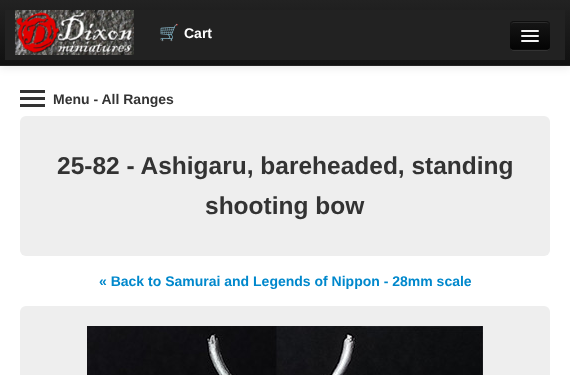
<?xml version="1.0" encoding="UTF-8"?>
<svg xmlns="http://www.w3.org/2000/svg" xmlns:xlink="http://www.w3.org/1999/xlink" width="570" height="375">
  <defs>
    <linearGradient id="g1" gradientUnits="userSpaceOnUse" x1="285" y1="0" x2="285" y2="65"><stop offset="0" stop-color="#222222" /><stop offset="1" stop-color="#111111" /></linearGradient>
    <clipPath id="clip1"><rect x="510" y="21" width="40" height="29" rx="4" /></clipPath>
    <linearGradient id="g2" gradientUnits="userSpaceOnUse" x1="530" y1="22" x2="530" y2="49"><stop offset="0" stop-color="#151515" /><stop offset="1" stop-color="#040404" /></linearGradient>
  </defs>
  <rect width="100%" height="100%" fill="#ffffff" />
  <rect y="1" width="570" height="66" fill="#000000" fill-opacity="0.1" filter="blur(5px)" />
  <rect width="570" height="65" fill="url(#g1)" />
  <rect y="65" width="570" height="1" fill="#252525" />
  <rect x="5" y="10" width="560" height="50" fill="#222222" />
  <image x="15" y="10" width="119" height="45" xlink:href="image1.png" />
  <path d="M 510 46 c 0 6 5 5 9 5 h 22 c 4 0 9 1 9 -5 c 0 2 -2 4 -4 4 h -32 c -2 0 -4 -2 -4 -4 z" fill="#333333" />
  <rect x="510" y="21" width="40" height="29" rx="4" fill="#0e0e0e" />
  <g clip-path="url(#clip1)">
    <rect x="510" y="22" width="40" height="27" fill="url(#g2)" />
  </g>
  <path d="M 514 23 h 32 c 2 0 3 1 3 3 c 0 -5 -4 -4 -8.5 -4 h -21 c -4.5 0 -8.5 -1 -8.5 4 c 0 -2 1 -3 3 -3 z" fill="#2c2c2c" />
  <path d="M 548.5 48.5 c -0.5 0.5 -1.5 1 -2.5 1 h -32 c -1 0 -2 -0.5 -2.5 -1" fill="none" stroke="#000000" stroke-opacity="0.25" />
  <path d="M 521 31.5 c -1 2 3.5 1.5 3.5 1.5 h 11 c 0 0 4.5 0.5 3.5 -1.5 c -1 1 -7.5 0.5 -9 0.5 c -1.5 0 -8 0.5 -9 -0.5 z" fill="#0b0b0b" />
  <rect x="521" y="30" width="18" height="2" rx="1" fill="#f5f5f5" />
  <path d="M 521 36.5 c -1 2 3.5 1.5 3.5 1.5 h 11 c 0 0 4.5 0.5 3.5 -1.5 c -1 1 -7.5 0.5 -9 0.5 c -1.5 0 -8 0.5 -9 -0.5 z" fill="#080808" />
  <rect x="521" y="35" width="18" height="2" rx="1" fill="#f5f5f5" />
  <rect x="521" y="40" width="18" height="2" rx="1" fill="#f5f5f5" />
  <rect x="20" y="90" width="25" height="3" fill="#333333" />
  <rect x="20" y="97" width="25" height="3" fill="#333333" />
  <rect x="20" y="104" width="25" height="3" fill="#333333" />
  <rect x="20" y="116" width="530" height="140" rx="6" fill="#eeeeee" />
  <rect x="20" y="306" width="530" height="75" rx="6" fill="#eeeeee" />
  <image x="87" y="326" width="396" height="49" xlink:href="image2.png" />
  <text x="159" y="38" style="font-family: Noto Color Emoji; font-size: 16px; font-weight: bold; fill: #ffffff">🛒</text>
  <text x="184" y="38" style="font-family: Liberation Sans; font-size: 14px; font-weight: bold; fill: #ffffff">Cart</text>
  <text x="53" y="104" style="font-family: Liberation Sans; font-size: 14px; font-weight: bold; fill: #333333">Menu - All Ranges</text>
  <text x="57" y="174" style="font-family: Liberation Sans; font-size: 24.5px; font-weight: bold; fill: #333333">25-82 - Ashigaru, bareheaded, standing</text>
  <text x="205" y="214" style="font-family: Liberation Sans; font-size: 24.5px; font-weight: bold; fill: #333333">shooting bow</text>
  <text x="99" y="286" style="font-family: Liberation Sans; font-size: 14px; font-weight: bold; fill: #0088cc">« Back to Samurai and Legends of Nippon - 28mm scale</text>
</svg>
